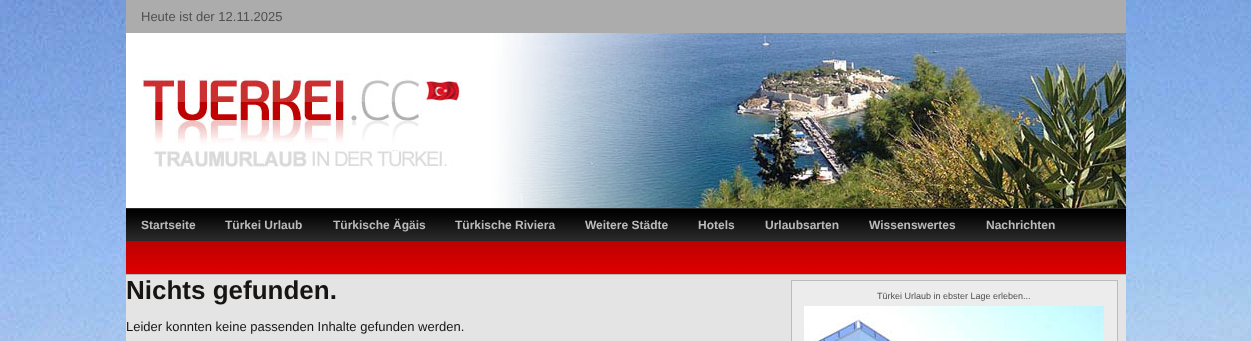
<?xml version="1.0" encoding="UTF-8"?>
<svg xmlns="http://www.w3.org/2000/svg" xmlns:xlink="http://www.w3.org/1999/xlink" width="1251" height="341">
  <rect width="100%" height="100%" fill="#ffffff" />
  <image x="0" y="0" width="1251" height="341" xlink:href="image1.png" />
  <rect x="126" width="1000" height="33" fill="#acacac" />
  <image x="126" y="33" width="1000" height="175" xlink:href="image2.png" />
  <image x="126" y="208" width="1000" height="33" xlink:href="image3.png" />
  <rect x="126" y="274" width="1000" height="1" fill="#bcb8b7" />
  <image x="126" y="241" width="1000" height="33" xlink:href="image4.png" />
  <rect x="126" y="275" width="1000" height="66" fill="#e4e4e4" />
  <rect x="791.5" y="280.5" width="326" height="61" fill="#ececec" stroke="#bbbbbb" />
  <image x="804" y="306" width="300" height="35" xlink:href="image5.png" />
  <text x="141" y="21" style="font-family: Liberation Sans; font-size: 13px; fill: #505050">Heute ist der 12.11.2025</text>
  <text x="141" y="229" style="font-family: Liberation Sans; font-size: 12px; font-weight: bold; fill: #bbbbbb">Startseite</text>
  <text x="225" y="229" style="font-family: Liberation Sans; font-size: 12px; font-weight: bold; fill: #bbbbbb">Türkei Urlaub</text>
  <text x="333" y="229" style="font-family: Liberation Sans; font-size: 12px; font-weight: bold; fill: #bbbbbb">Türkische Ägäis</text>
  <text x="455" y="229" style="font-family: Liberation Sans; font-size: 12px; font-weight: bold; fill: #bbbbbb">Türkische Riviera</text>
  <text x="585" y="229" style="font-family: Liberation Sans; font-size: 12px; font-weight: bold; fill: #bbbbbb">Weitere Städte</text>
  <text x="698" y="229" style="font-family: Liberation Sans; font-size: 12px; font-weight: bold; fill: #bbbbbb">Hotels</text>
  <text x="765" y="229" style="font-family: Liberation Sans; font-size: 12px; font-weight: bold; fill: #bbbbbb">Urlaubsarten</text>
  <text x="869" y="229" style="font-family: Liberation Sans; font-size: 12px; font-weight: bold; fill: #bbbbbb">Wissenswertes</text>
  <text x="986" y="229" style="font-family: Liberation Sans; font-size: 12px; font-weight: bold; fill: #bbbbbb">Nachrichten</text>
  <text x="126" y="299" style="font-family: Liberation Sans; font-size: 26px; font-weight: bold; fill: #161514">Nichts gefunden.</text>
  <text x="126" y="331" style="font-family: Liberation Sans; font-size: 13px; fill: #161514">Leider konnten keine passenden Inhalte gefunden werden.</text>
  <text x="877" y="299" style="font-family: Liberation Sans; font-size: 9px; fill: #505050">Türkei Urlaub in ebster Lage erleben...</text>
</svg>
